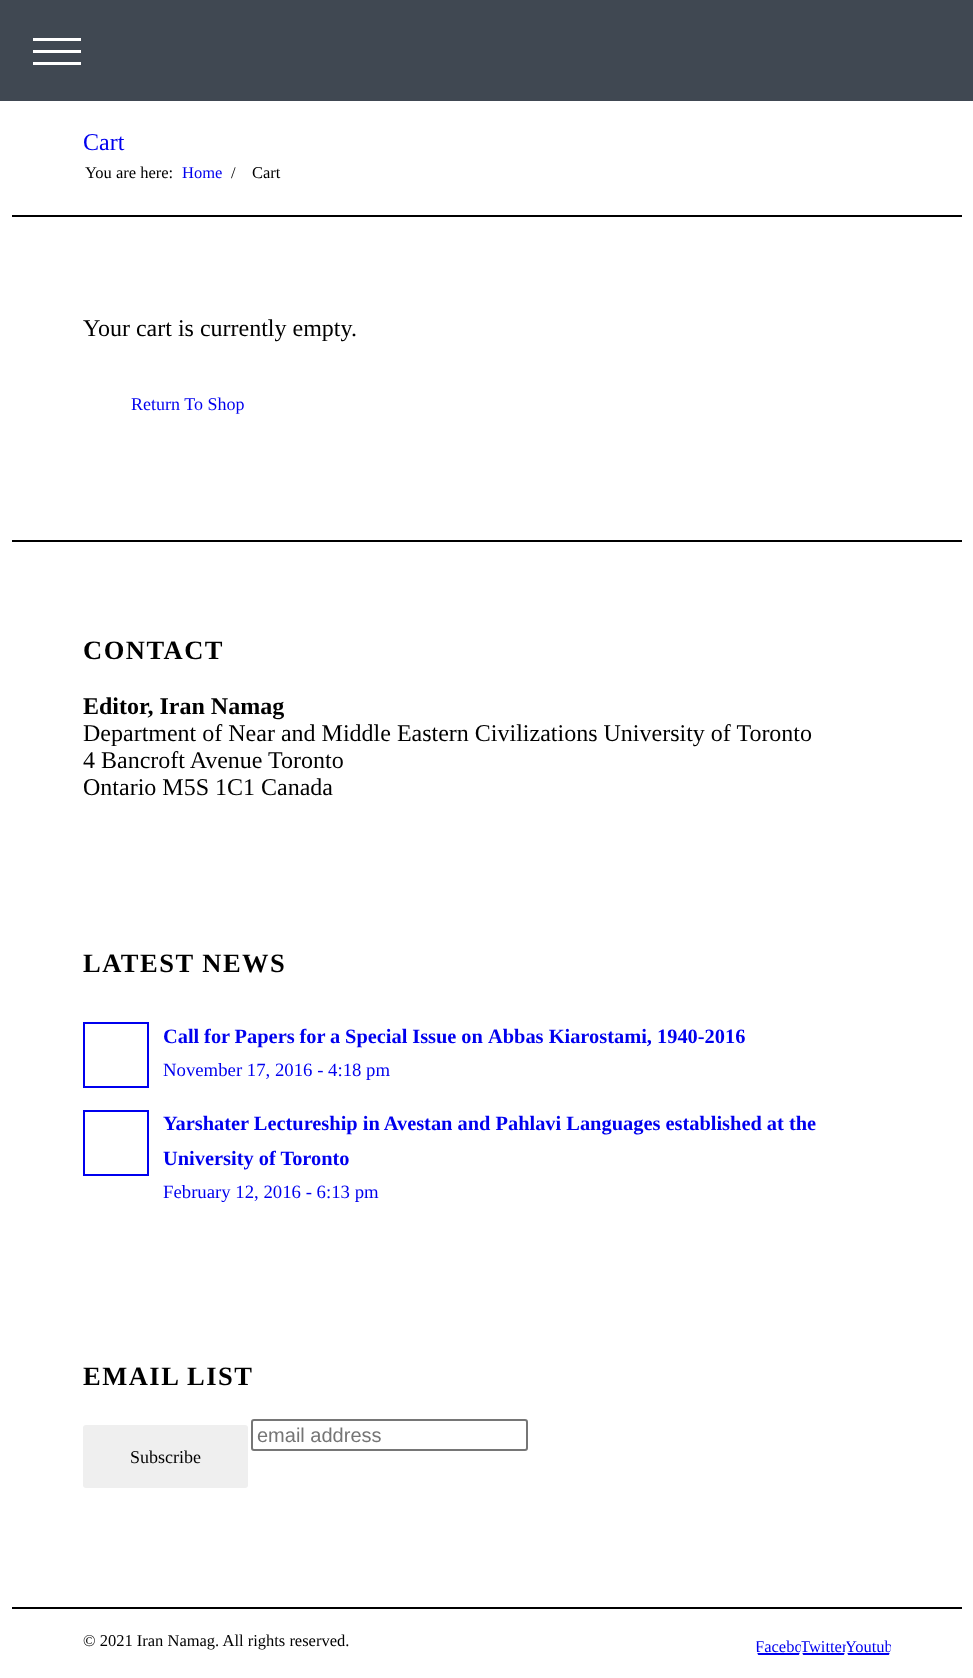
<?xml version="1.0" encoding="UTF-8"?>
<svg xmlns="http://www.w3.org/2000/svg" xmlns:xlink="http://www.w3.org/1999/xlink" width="973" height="1678">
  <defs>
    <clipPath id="clip1"><rect x="756" y="1623" width="45" height="45" rx="22.5" /></clipPath>
    <clipPath id="clip2"><rect x="801" y="1623" width="45" height="45" rx="22.5" /></clipPath>
    <clipPath id="clip3"><rect x="846" y="1623" width="45" height="45" rx="22.5" /></clipPath>
  </defs>
  <rect width="100%" height="100%" fill="#ffffff" />
  <rect width="973" height="101" fill="#404852" />
  <rect x="33" y="38" width="48" height="3" fill="#ffffff" />
  <rect x="33" y="50" width="48" height="3" fill="#ffffff" />
  <rect x="33" y="62" width="48" height="3" fill="#ffffff" />
  <rect x="12" y="215" width="950" height="2" fill="#000000" />
  <rect x="12" y="540" width="950" height="2" fill="#000000" />
  <rect x="84" y="1023" width="64" height="64" fill="none" stroke="#0000ee" stroke-width="2" />
  <rect x="84" y="1111" width="64" height="64" fill="none" stroke="#0000ee" stroke-width="2" />
  <rect x="252" y="1420" width="275" height="30" rx="2" fill="none" stroke="#767676" stroke-width="2" />
  <rect x="83" y="1425" width="165" height="63" rx="3" fill="#efefef" />
  <rect x="12" y="1607" width="950" height="2" fill="#000000" />
  <g clip-path="url(#clip1)">
    <rect x="756" y="1653" width="45" height="2" fill="#0000ee" />
  </g>
  <g clip-path="url(#clip2)">
    <rect x="801" y="1653" width="45" height="2" fill="#0000ee" />
  </g>
  <g clip-path="url(#clip3)">
    <rect x="846" y="1653" width="45" height="2" fill="#0000ee" />
  </g>
  <text x="83" y="150" style="font-family: Liberation Serif; font-size: 24px; fill: #0000ee">Cart</text>
  <text x="85" y="178" style="font-family: Liberation Serif; font-size: 16.5px; fill: #000000">You are here:</text>
  <text x="182" y="178" style="font-family: Liberation Serif; font-size: 16.5px; fill: #0000ee">Home</text>
  <text x="231" y="178" style="font-family: Liberation Serif; font-size: 16.5px; fill: #000000">/</text>
  <text x="252" y="178" style="font-family: Liberation Serif; font-size: 16.5px; fill: #000000">Cart</text>
  <text x="83" y="336" style="font-family: Liberation Serif; font-size: 24px; fill: #000000">Your cart is currently empty.</text>
  <text x="131" y="410" style="font-family: Liberation Serif; font-size: 18px; fill: #0000ee">Return To Shop</text>
  <text x="83" y="659" style="font-family: Liberation Serif; font-size: 26.5px; font-weight: bold; letter-spacing: 1.5px; fill: #000000">CONTACT</text>
  <text x="83" y="714" style="font-family: Liberation Serif; font-size: 24px; font-weight: bold; fill: #000000">Editor, Iran Namag</text>
  <text x="83" y="741" style="font-family: Liberation Serif; font-size: 24px; fill: #000000">Department of Near and Middle Eastern Civilizations University of Toronto</text>
  <text x="83" y="768" style="font-family: Liberation Serif; font-size: 24px; fill: #000000">4 Bancroft Avenue Toronto</text>
  <text x="83" y="795" style="font-family: Liberation Serif; font-size: 24px; fill: #000000">Ontario M5S 1C1 Canada</text>
  <text x="83" y="972" style="font-family: Liberation Serif; font-size: 26.5px; font-weight: bold; letter-spacing: 1.5px; fill: #000000">LATEST NEWS</text>
  <text x="163" y="1043" word-spacing="-0.25" style="font-family: Liberation Serif; font-size: 20.4px; font-weight: bold; fill: #0000ee">Call for Papers for a Special Issue on</text>
  <text x="488" y="1043" style="font-family: Liberation Serif; font-size: 20.4px; font-weight: bold; fill: #0000ee">Abbas Kiarostami, 1940-2016</text>
  <text x="163" y="1076" style="font-family: Liberation Serif; font-size: 18.75px; fill: #0000ee">November 17, 2016 - 4:18 pm</text>
  <text x="163" y="1130" style="font-family: Liberation Serif; font-size: 20.4px; font-weight: bold; fill: #0000ee">Yarshater Lectureship in Avestan and Pahlavi Languages established at the</text>
  <text x="163" y="1165" style="font-family: Liberation Serif; font-size: 20.4px; font-weight: bold; fill: #0000ee">University of Toronto</text>
  <text x="163" y="1198" style="font-family: Liberation Serif; font-size: 18.75px; fill: #0000ee">February 12, 2016 - 6:13 pm</text>
  <text x="83" y="1385" style="font-family: Liberation Serif; font-size: 26.5px; font-weight: bold; letter-spacing: 1.5px; fill: #000000">EMAIL LIST</text>
  <text x="257" y="1442" style="font-family: Liberation Sans; font-size: 20px; fill: #757575">email address</text>
  <text x="130" y="1463" style="font-family: Liberation Serif; font-size: 18px; fill: #000000">Subscribe</text>
  <text x="83" y="1646" style="font-family: Liberation Serif; font-size: 16.5px; fill: #000000">© 2021 Iran Namag. All rights reserved.</text>
  <g clip-path="url(#clip1)">
    <text x="755" y="1652" style="font-family: Liberation Serif; font-size: 16.5px; fill: #0000ee">Facebo</text>
  </g>
  <g clip-path="url(#clip2)">
    <text x="800" y="1652" style="font-family: Liberation Serif; font-size: 16.5px; fill: #0000ee">Twitter</text>
  </g>
  <g clip-path="url(#clip3)">
    <text x="845" y="1652" style="font-family: Liberation Serif; font-size: 16.5px; fill: #0000ee">Youtub</text>
  </g>
</svg>
